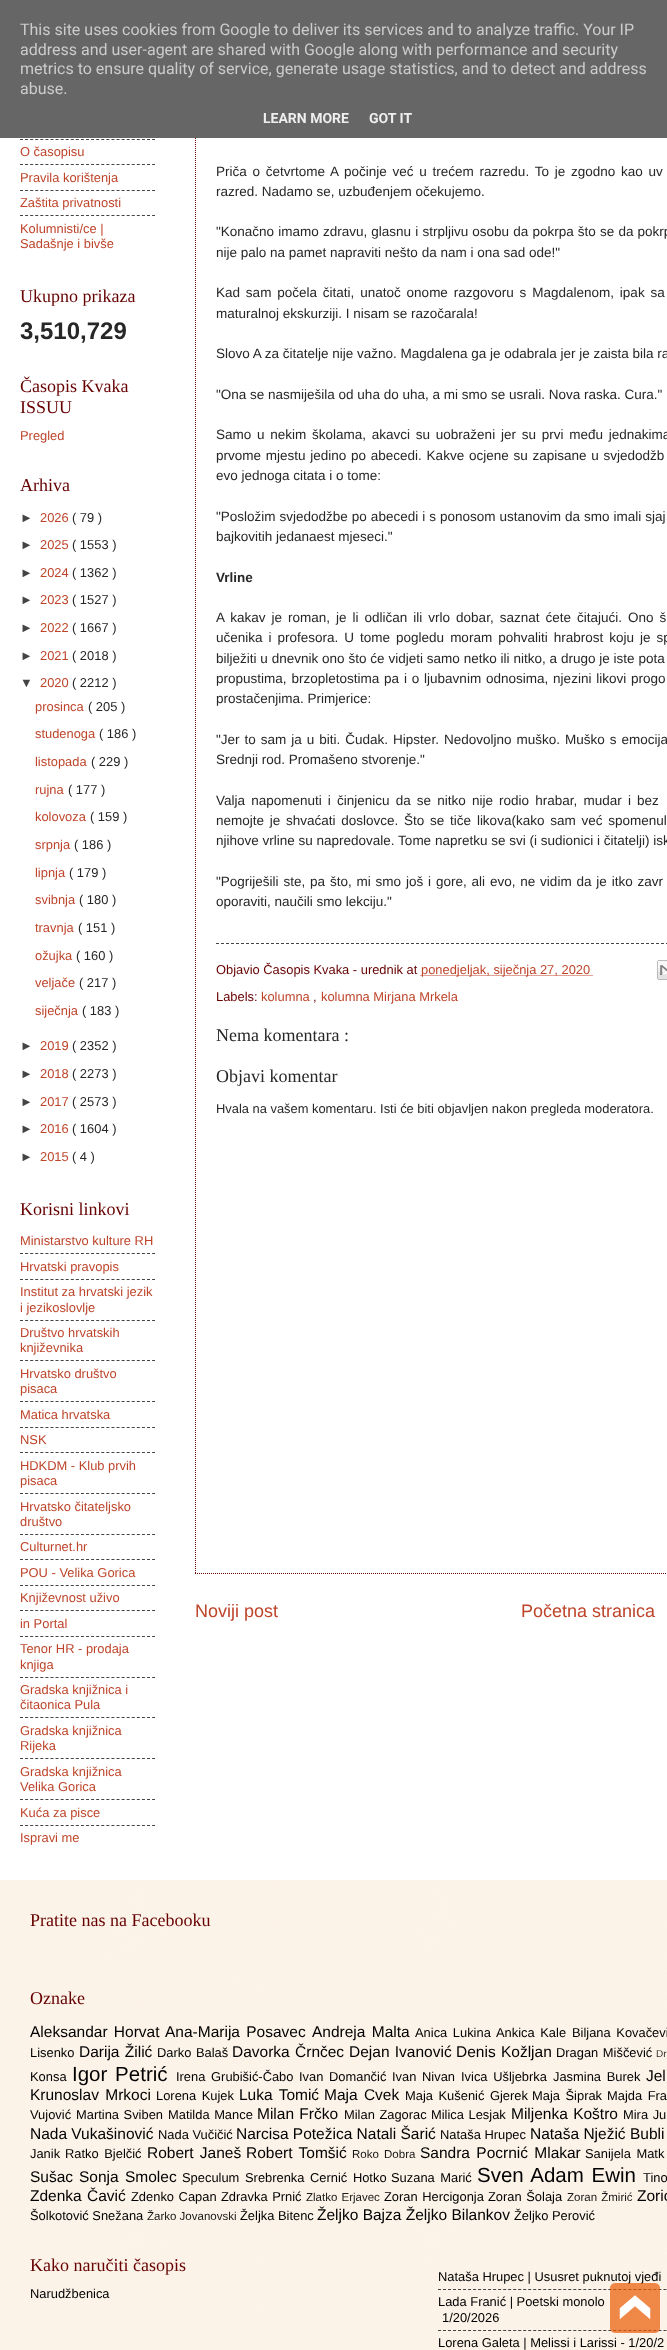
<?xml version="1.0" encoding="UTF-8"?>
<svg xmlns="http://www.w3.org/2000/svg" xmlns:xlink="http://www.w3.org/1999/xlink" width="667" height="2350">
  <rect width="100%" height="100%" fill="#ffffff" />
  <path d="M 195.5 -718 v 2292" fill="none" stroke="#660000" stroke-dasharray="1 1" />
  <rect width="667" height="138" fill="#666666" />
  <path d="M 20 139.5 h 135" fill="none" stroke="#444444" stroke-dasharray="3 2.08" />
  <path d="M 20 164.5 h 135" fill="none" stroke="#444444" stroke-dasharray="3 2.08" />
  <path d="M 20 190.5 h 135" fill="none" stroke="#444444" stroke-dasharray="3 2.08" />
  <path d="M 20 215.5 h 135" fill="none" stroke="#444444" stroke-dasharray="3 2.08" />
  <path d="M 20 1253.5 h 135" fill="none" stroke="#444444" stroke-dasharray="3 2.08" />
  <path d="M 20 1279.5 h 135" fill="none" stroke="#444444" stroke-dasharray="3 2.08" />
  <path d="M 20 1320.5 h 135" fill="none" stroke="#444444" stroke-dasharray="3 2.08" />
  <path d="M 20 1360.5 h 135" fill="none" stroke="#444444" stroke-dasharray="3 2.08" />
  <path d="M 20 1401.5 h 135" fill="none" stroke="#444444" stroke-dasharray="3 2.08" />
  <path d="M 20 1427.5 h 135" fill="none" stroke="#444444" stroke-dasharray="3 2.08" />
  <path d="M 20 1452.5 h 135" fill="none" stroke="#444444" stroke-dasharray="3 2.08" />
  <path d="M 20 1493.5 h 135" fill="none" stroke="#444444" stroke-dasharray="3 2.08" />
  <path d="M 20 1534.5 h 135" fill="none" stroke="#444444" stroke-dasharray="3 2.08" />
  <path d="M 20 1559.5 h 135" fill="none" stroke="#444444" stroke-dasharray="3 2.08" />
  <path d="M 20 1585.5 h 135" fill="none" stroke="#444444" stroke-dasharray="3 2.08" />
  <path d="M 20 1610.5 h 135" fill="none" stroke="#444444" stroke-dasharray="3 2.08" />
  <path d="M 20 1636.5 h 135" fill="none" stroke="#444444" stroke-dasharray="3 2.08" />
  <path d="M 20 1677.5 h 135" fill="none" stroke="#444444" stroke-dasharray="3 2.08" />
  <path d="M 20 1717.5 h 135" fill="none" stroke="#444444" stroke-dasharray="3 2.08" />
  <path d="M 20 1758.5 h 135" fill="none" stroke="#444444" stroke-dasharray="3 2.08" />
  <path d="M 20 1799.5 h 135" fill="none" stroke="#444444" stroke-dasharray="3 2.08" />
  <path d="M 20 1825.5 h 135" fill="none" stroke="#444444" stroke-dasharray="3 2.08" />
  <path d="M 195 1573.5 h 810" fill="none" stroke="#660000" stroke-dasharray="1 1" />
  <path d="M 216 943.5 h 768" fill="none" stroke="#444444" stroke-dasharray="3 2" />
  <path d="M 420.5 975.5 h 172.5" fill="none" stroke="#be442a" stroke-dasharray="1 1" />
  <image x="657" y="960" width="10" height="20" xlink:href="image1.png" />
  <rect y="1880" width="667" height="470" fill="#fcf1e5" />
  <image x="0" y="1880" width="667" height="470" xlink:href="image2.png" />
  <path d="M 438 2289.5 h 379" fill="none" stroke="#444444" stroke-dasharray="3 2.01" />
  <path d="M 438 2330.5 h 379" fill="none" stroke="#444444" stroke-dasharray="3 2.01" />
  <text x="20" y="35" style="font-family: Roboto; font-size: 16px; fill: #cccccc">This site uses cookies from Google to deliver its services and to analyze traffic. Your IP</text>
  <text x="20" y="55" style="font-family: Roboto; font-size: 16px; fill: #cccccc">address and user-agent are shared with Google along with performance and security</text>
  <text x="20" y="74" style="font-family: Roboto; font-size: 16px; fill: #cccccc">metrics to ensure quality of service, generate usage statistics, and to detect and address</text>
  <text x="20" y="94" style="font-family: Roboto; font-size: 16px; fill: #cccccc">abuse.</text>
  <text x="263" y="123" style="font-family: Roboto; font-size: 14px; font-weight: bold; fill: #eeeeee">LEARN MORE</text>
  <text x="369" y="123" style="font-family: Roboto; font-size: 14px; font-weight: bold; fill: #eeeeee">GOT IT</text>
  <text x="20" y="156" style="font-family: Liberation Sans; font-size: 12.9px; fill: #be442a">O časopisu</text>
  <text x="20" y="182" style="font-family: Liberation Sans; font-size: 12.9px; fill: #be442a">Pravila korištenja</text>
  <text x="20" y="207" style="font-family: Liberation Sans; font-size: 12.9px; fill: #be442a">Zaštita privatnosti</text>
  <text x="20" y="233" style="font-family: Liberation Sans; font-size: 12.9px; fill: #be442a">Kolumnisti/ce |</text>
  <text x="20" y="248" style="font-family: Liberation Sans; font-size: 12.9px; fill: #be442a">Sadašnje i bivše</text>
  <text x="20" y="302" style="font-family: Liberation Serif; font-size: 18px; fill: #660000">Ukupno prikaza</text>
  <text x="20" y="339" style="font-family: Liberation Sans; font-size: 24px; font-weight: bold; fill: #282727">3,510,729</text>
  <text x="20" y="392" style="font-family: Liberation Serif; font-size: 18px; fill: #660000">Časopis Kvaka</text>
  <text x="20" y="413" style="font-family: Liberation Serif; font-size: 18px; fill: #660000">ISSUU</text>
  <text x="20" y="440" style="font-family: Liberation Sans; font-size: 12.9px; fill: #be442a">Pregled</text>
  <text x="20" y="491" style="font-family: Liberation Serif; font-size: 18px; fill: #660000">Arhiva</text>
  <text x="20" y="522" style="font-family: Liberation Sans; font-size: 12.9px; fill: #444444">►</text>
  <text x="40" y="522" style="font-family: Liberation Sans; font-size: 12.9px; fill: #be442a">2026</text>
  <text x="72" y="522" style="font-family: Liberation Sans; font-size: 12.9px; fill: #282727">( 79 )</text>
  <text x="20" y="549" style="font-family: Liberation Sans; font-size: 12.9px; fill: #444444">►</text>
  <text x="40" y="549" style="font-family: Liberation Sans; font-size: 12.9px; fill: #be442a">2025</text>
  <text x="72" y="549" style="font-family: Liberation Sans; font-size: 12.9px; fill: #282727">( 1553 )</text>
  <text x="20" y="577" style="font-family: Liberation Sans; font-size: 12.9px; fill: #444444">►</text>
  <text x="40" y="577" style="font-family: Liberation Sans; font-size: 12.9px; fill: #be442a">2024</text>
  <text x="72" y="577" style="font-family: Liberation Sans; font-size: 12.9px; fill: #282727">( 1362 )</text>
  <text x="20" y="604" style="font-family: Liberation Sans; font-size: 12.9px; fill: #444444">►</text>
  <text x="40" y="604" style="font-family: Liberation Sans; font-size: 12.9px; fill: #be442a">2023</text>
  <text x="72" y="604" style="font-family: Liberation Sans; font-size: 12.9px; fill: #282727">( 1527 )</text>
  <text x="20" y="632" style="font-family: Liberation Sans; font-size: 12.9px; fill: #444444">►</text>
  <text x="40" y="632" style="font-family: Liberation Sans; font-size: 12.9px; fill: #be442a">2022</text>
  <text x="72" y="632" style="font-family: Liberation Sans; font-size: 12.9px; fill: #282727">( 1667 )</text>
  <text x="20" y="660" style="font-family: Liberation Sans; font-size: 12.9px; fill: #444444">►</text>
  <text x="40" y="660" style="font-family: Liberation Sans; font-size: 12.9px; fill: #be442a">2021</text>
  <text x="72" y="660" style="font-family: Liberation Sans; font-size: 12.9px; fill: #282727">( 2018 )</text>
  <text x="20" y="687" style="font-family: Liberation Sans; font-size: 12.9px; fill: #444444">▼</text>
  <text x="40" y="687" style="font-family: Liberation Sans; font-size: 12.9px; fill: #be442a">2020</text>
  <text x="72" y="687" style="font-family: Liberation Sans; font-size: 12.9px; fill: #282727">( 2212 )</text>
  <text x="35" y="711" style="font-family: Liberation Sans; font-size: 12.9px; fill: #be442a">prosinca</text>
  <text x="88" y="711" style="font-family: Liberation Sans; font-size: 12.9px; fill: #282727">( 205 )</text>
  <text x="35" y="738" style="font-family: Liberation Sans; font-size: 12.9px; fill: #be442a">studenoga</text>
  <text x="99" y="738" style="font-family: Liberation Sans; font-size: 12.9px; fill: #282727">( 186 )</text>
  <text x="35" y="766" style="font-family: Liberation Sans; font-size: 12.9px; fill: #be442a">listopada</text>
  <text x="91" y="766" style="font-family: Liberation Sans; font-size: 12.9px; fill: #282727">( 229 )</text>
  <text x="35" y="794" style="font-family: Liberation Sans; font-size: 12.9px; fill: #be442a">rujna</text>
  <text x="68" y="794" style="font-family: Liberation Sans; font-size: 12.9px; fill: #282727">( 177 )</text>
  <text x="35" y="821" style="font-family: Liberation Sans; font-size: 12.9px; fill: #be442a">kolovoza</text>
  <text x="90" y="821" style="font-family: Liberation Sans; font-size: 12.9px; fill: #282727">( 159 )</text>
  <text x="35" y="849" style="font-family: Liberation Sans; font-size: 12.9px; fill: #be442a">srpnja</text>
  <text x="74" y="849" style="font-family: Liberation Sans; font-size: 12.9px; fill: #282727">( 186 )</text>
  <text x="35" y="877" style="font-family: Liberation Sans; font-size: 12.9px; fill: #be442a">lipnja</text>
  <text x="69" y="877" style="font-family: Liberation Sans; font-size: 12.9px; fill: #282727">( 179 )</text>
  <text x="35" y="904" style="font-family: Liberation Sans; font-size: 12.9px; fill: #be442a">svibnja</text>
  <text x="79" y="904" style="font-family: Liberation Sans; font-size: 12.9px; fill: #282727">( 180 )</text>
  <text x="35" y="932" style="font-family: Liberation Sans; font-size: 12.9px; fill: #be442a">travnja</text>
  <text x="78" y="932" style="font-family: Liberation Sans; font-size: 12.9px; fill: #282727">( 151 )</text>
  <text x="35" y="960" style="font-family: Liberation Sans; font-size: 12.9px; fill: #be442a">ožujka</text>
  <text x="76" y="960" style="font-family: Liberation Sans; font-size: 12.9px; fill: #282727">( 160 )</text>
  <text x="35" y="987" style="font-family: Liberation Sans; font-size: 12.9px; fill: #be442a">veljače</text>
  <text x="79" y="987" style="font-family: Liberation Sans; font-size: 12.9px; fill: #282727">( 217 )</text>
  <text x="35" y="1015" style="font-family: Liberation Sans; font-size: 12.9px; fill: #be442a">siječnja</text>
  <text x="82" y="1015" style="font-family: Liberation Sans; font-size: 12.9px; fill: #282727">( 183 )</text>
  <text x="20" y="1050" style="font-family: Liberation Sans; font-size: 12.9px; fill: #444444">►</text>
  <text x="40" y="1050" style="font-family: Liberation Sans; font-size: 12.9px; fill: #be442a">2019</text>
  <text x="72" y="1050" style="font-family: Liberation Sans; font-size: 12.9px; fill: #282727">( 2352 )</text>
  <text x="20" y="1078" style="font-family: Liberation Sans; font-size: 12.9px; fill: #444444">►</text>
  <text x="40" y="1078" style="font-family: Liberation Sans; font-size: 12.9px; fill: #be442a">2018</text>
  <text x="72" y="1078" style="font-family: Liberation Sans; font-size: 12.9px; fill: #282727">( 2273 )</text>
  <text x="20" y="1106" style="font-family: Liberation Sans; font-size: 12.9px; fill: #444444">►</text>
  <text x="40" y="1106" style="font-family: Liberation Sans; font-size: 12.9px; fill: #be442a">2017</text>
  <text x="72" y="1106" style="font-family: Liberation Sans; font-size: 12.9px; fill: #282727">( 2573 )</text>
  <text x="20" y="1133" style="font-family: Liberation Sans; font-size: 12.9px; fill: #444444">►</text>
  <text x="40" y="1133" style="font-family: Liberation Sans; font-size: 12.9px; fill: #be442a">2016</text>
  <text x="72" y="1133" style="font-family: Liberation Sans; font-size: 12.9px; fill: #282727">( 1604 )</text>
  <text x="20" y="1161" style="font-family: Liberation Sans; font-size: 12.9px; fill: #444444">►</text>
  <text x="40" y="1161" style="font-family: Liberation Sans; font-size: 12.9px; fill: #be442a">2015</text>
  <text x="72" y="1161" style="font-family: Liberation Sans; font-size: 12.9px; fill: #282727">( 4 )</text>
  <text x="20" y="1215" style="font-family: Liberation Serif; font-size: 18px; fill: #660000">Korisni linkovi</text>
  <text x="20" y="1245" style="font-family: Liberation Sans; font-size: 12.9px; fill: #be442a">Ministarstvo kulture RH</text>
  <text x="20" y="1271" style="font-family: Liberation Sans; font-size: 12.9px; fill: #be442a">Hrvatski pravopis</text>
  <text x="20" y="1296" style="font-family: Liberation Sans; font-size: 12.9px; fill: #be442a">Institut za hrvatski jezik</text>
  <text x="20" y="1312" style="font-family: Liberation Sans; font-size: 12.9px; fill: #be442a">i jezikoslovlje</text>
  <text x="20" y="1337" style="font-family: Liberation Sans; font-size: 12.9px; fill: #be442a">Društvo hrvatskih</text>
  <text x="20" y="1352" style="font-family: Liberation Sans; font-size: 12.9px; fill: #be442a">književnika</text>
  <text x="20" y="1378" style="font-family: Liberation Sans; font-size: 12.9px; fill: #be442a">Hrvatsko društvo</text>
  <text x="20" y="1393" style="font-family: Liberation Sans; font-size: 12.9px; fill: #be442a">pisaca</text>
  <text x="20" y="1419" style="font-family: Liberation Sans; font-size: 12.9px; fill: #be442a">Matica hrvatska</text>
  <text x="20" y="1444" style="font-family: Liberation Sans; font-size: 12.9px; fill: #be442a">NSK</text>
  <text x="20" y="1470" style="font-family: Liberation Sans; font-size: 12.9px; fill: #be442a">HDKDM - Klub prvih</text>
  <text x="20" y="1485" style="font-family: Liberation Sans; font-size: 12.9px; fill: #be442a">pisaca</text>
  <text x="20" y="1511" style="font-family: Liberation Sans; font-size: 12.9px; fill: #be442a">Hrvatsko čitateljsko</text>
  <text x="20" y="1526" style="font-family: Liberation Sans; font-size: 12.9px; fill: #be442a">društvo</text>
  <text x="20" y="1551" style="font-family: Liberation Sans; font-size: 12.9px; fill: #be442a">Culturnet.hr</text>
  <text x="20" y="1577" style="font-family: Liberation Sans; font-size: 12.9px; fill: #be442a">POU - Velika Gorica</text>
  <text x="20" y="1602" style="font-family: Liberation Sans; font-size: 12.9px; fill: #be442a">Književnost uživo</text>
  <text x="20" y="1628" style="font-family: Liberation Sans; font-size: 12.9px; fill: #be442a">in Portal</text>
  <text x="20" y="1653" style="font-family: Liberation Sans; font-size: 12.9px; fill: #be442a">Tenor HR - prodaja</text>
  <text x="20" y="1669" style="font-family: Liberation Sans; font-size: 12.9px; fill: #be442a">knjiga</text>
  <text x="20" y="1694" style="font-family: Liberation Sans; font-size: 12.9px; fill: #be442a">Gradska knjižnica i</text>
  <text x="20" y="1709" style="font-family: Liberation Sans; font-size: 12.9px; fill: #be442a">čitaonica Pula</text>
  <text x="20" y="1735" style="font-family: Liberation Sans; font-size: 12.9px; fill: #be442a">Gradska knjižnica</text>
  <text x="20" y="1750" style="font-family: Liberation Sans; font-size: 12.9px; fill: #be442a">Rijeka</text>
  <text x="20" y="1776" style="font-family: Liberation Sans; font-size: 12.9px; fill: #be442a">Gradska knjižnica</text>
  <text x="20" y="1791" style="font-family: Liberation Sans; font-size: 12.9px; fill: #be442a">Velika Gorica</text>
  <text x="20" y="1817" style="font-family: Liberation Sans; font-size: 12.9px; fill: #be442a">Kuća za pisce</text>
  <text x="20" y="1842" style="font-family: Liberation Sans; font-size: 12.9px; fill: #be442a">Ispravi me</text>
  <text x="216" y="176" word-spacing="2" style="font-family: Liberation Sans; font-size: 13.5px; fill: #282727">Priča o četvrtome A počinje već u trećem razredu. To je zgodno kao uv</text>
  <text x="216" y="196" style="font-family: Liberation Sans; font-size: 13.5px; fill: #282727">razred. Nadamo se, uzbuđenjem očekujemo.</text>
  <text x="216" y="236" word-spacing="0.4" style="font-family: Liberation Sans; font-size: 13.5px; fill: #282727">"Konačno imamo zdravu, glasnu i strpljivu osobu da pokrpa što se da pokrp</text>
  <text x="216" y="257" style="font-family: Liberation Sans; font-size: 13.5px; fill: #282727">nije palo na pamet napraviti nešto da nam i ona sad ode!"</text>
  <text x="216" y="297" word-spacing="2.1" style="font-family: Liberation Sans; font-size: 13.5px; fill: #282727">Kad sam počela čitati, unatoč onome razgovoru s Magdalenom, ipak sa</text>
  <text x="216" y="318" style="font-family: Liberation Sans; font-size: 13.5px; fill: #282727">maturalnoj ekskurziji. I nisam se razočarala!</text>
  <text x="216" y="358" style="font-family: Liberation Sans; font-size: 13.5px; fill: #282727">Slovo A za čitatelje nije važno. Magdalena ga je odabrala jer je zaista bila ra</text>
  <text x="216" y="399" style="font-family: Liberation Sans; font-size: 13.5px; fill: #282727">"Ona se nasmiješila od uha do uha, a mi smo se usrali. Nova raska. Cura."</text>
  <text x="216" y="439" word-spacing="2" style="font-family: Liberation Sans; font-size: 13.5px; fill: #282727">Samo u nekim školama, akavci su uobraženi jer su prvi među jednakima</text>
  <text x="216" y="460" word-spacing="1" style="font-family: Liberation Sans; font-size: 13.5px; fill: #282727">prvome mjestu jedino po abecedi. Kakve ocjene su zapisane u svjedodžb</text>
  <text x="216" y="480" style="font-family: Liberation Sans; font-size: 13.5px; fill: #282727">evo jednoga citata i o tome:</text>
  <text x="216" y="521" word-spacing="0.25" style="font-family: Liberation Sans; font-size: 13.5px; fill: #282727">"Posložim svjedodžbe po abecedi i s ponosom ustanovim da smo imali sjaj</text>
  <text x="216" y="541" style="font-family: Liberation Sans; font-size: 13.5px; fill: #282727">bajkovitih jedanaest mjeseci."</text>
  <text x="216" y="582" style="font-family: Liberation Sans; font-size: 13.5px; font-weight: bold; fill: #282727">Vrline</text>
  <text x="216" y="622" word-spacing="2.25" style="font-family: Liberation Sans; font-size: 13.5px; fill: #282727">A kakav je roman, je li odličan ili vrlo dobar, saznat ćete čitajući. Ono š</text>
  <text x="216" y="642" word-spacing="2.25" style="font-family: Liberation Sans; font-size: 13.5px; fill: #282727">učenika i profesora. U tome pogledu moram pohvaliti hrabrost koju je sp</text>
  <text x="216" y="663" word-spacing="0.1" style="font-family: Liberation Sans; font-size: 13.5px; fill: #282727">bilježiti u dnevnik ono što će vidjeti samo netko ili nitko, a drugo je iste pota</text>
  <text x="216" y="683" word-spacing="1.1" style="font-family: Liberation Sans; font-size: 13.5px; fill: #282727">propustima, brzopletostima pa i o ljubavnim odnosima, njezini likovi progo</text>
  <text x="216" y="703" style="font-family: Liberation Sans; font-size: 13.5px; fill: #282727">prostačenjima. Primjerice:</text>
  <text x="216" y="744" word-spacing="1.25" style="font-family: Liberation Sans; font-size: 13.5px; fill: #282727">"Jer to sam ja u biti. Čudak. Hipster. Nedovoljno muško. Muško s emocija</text>
  <text x="216" y="764" style="font-family: Liberation Sans; font-size: 13.5px; fill: #282727">Srednji rod. Promašeno stvorenje."</text>
  <text x="216" y="805" word-spacing="2.4" style="font-family: Liberation Sans; font-size: 13.5px; fill: #282727">Valja napomenuti i činjenicu da se nitko nije rodio hrabar, mudar i bez</text>
  <text x="216" y="825" word-spacing="2" style="font-family: Liberation Sans; font-size: 13.5px; fill: #282727">nemojte je shvaćati doslovce. Što se tiče likova(kako sam već spomenul</text>
  <text x="216" y="845" style="font-family: Liberation Sans; font-size: 13.5px; fill: #282727">njihove vrline su napredovale. Tome napretku se svi (i sudionici i čitatelji) isk</text>
  <text x="216" y="886" word-spacing="1.1" style="font-family: Liberation Sans; font-size: 13.5px; fill: #282727">"Pogriješili ste, pa što, mi smo još i gore, ali evo, ne vidim da je itko zavr</text>
  <text x="216" y="906" style="font-family: Liberation Sans; font-size: 13.5px; fill: #282727">oporaviti, naučili smo lekciju."</text>
  <text x="216" y="974" style="font-family: Liberation Sans; font-size: 12.9px; fill: #660000">Objavio Časopis Kvaka - urednik at</text>
  <text x="421" y="974" style="font-family: Liberation Sans; font-size: 12.9px; fill: #be442a">ponedjeljak, siječnja 27, 2020</text>
  <text x="216" y="1001" style="font-family: Liberation Sans; font-size: 12.9px; fill: #660000">Labels:</text>
  <text x="261" y="1001" style="font-family: Liberation Sans; font-size: 12.9px; fill: #be442a">kolumna</text>
  <text x="313" y="1001" style="font-family: Liberation Sans; font-size: 12.9px; fill: #660000">,</text>
  <text x="321" y="1001" style="font-family: Liberation Sans; font-size: 12.9px; fill: #be442a">kolumna Mirjana Mrkela</text>
  <text x="216" y="1041" style="font-family: Liberation Serif; font-size: 18px; fill: #282727">Nema komentara :</text>
  <text x="216" y="1082" style="font-family: Liberation Serif; font-size: 18px; fill: #282727">Objavi komentar</text>
  <text x="216" y="1113" style="font-family: Liberation Sans; font-size: 12.9px; fill: #282727">Hvala na vašem komentaru. Isti će biti objavljen nakon pregleda moderatora.</text>
  <text x="195" y="1617" style="font-family: Liberation Sans; font-size: 18px; fill: #be442a">Noviji post</text>
  <text x="521" y="1617" style="font-family: Liberation Sans; font-size: 18px; fill: #be442a">Početna stranica</text>
  <text x="30" y="1926" style="font-family: Liberation Serif; font-size: 18px; fill: #660000">Pratite nas na Facebooku</text>
  <text x="30" y="2004" style="font-family: Liberation Serif; font-size: 18px; fill: #660000">Oznake</text>
  <text x="30" y="2037" word-spacing="2" style="font-family: Liberation Sans; font-size: 15.5px; fill: #000000">Aleksandar Horvat</text>
  <text x="165" y="2037" word-spacing="2" style="font-family: Liberation Sans; font-size: 15.5px; fill: #000000">Ana-Marija Posavec</text>
  <text x="312" y="2037" word-spacing="2" style="font-family: Liberation Sans; font-size: 15.5px; fill: #000000">Andreja Malta</text>
  <text x="415" y="2037" word-spacing="2" style="font-family: Liberation Sans; font-size: 12.9px; fill: #000000">Anica Lukina</text>
  <text x="496" y="2037" word-spacing="2" style="font-family: Liberation Sans; font-size: 12.9px; fill: #000000">Ankica Kale</text>
  <text x="572" y="2037" word-spacing="2" style="font-family: Liberation Sans; font-size: 12.9px; fill: #000000">Biljana Kovačevi</text>
  <text x="30" y="2057" style="font-family: Liberation Sans; font-size: 12.9px; fill: #000000">Lisenko</text>
  <text x="79" y="2057" word-spacing="1" style="font-family: Liberation Sans; font-size: 15.5px; fill: #000000">Darija Žilić</text>
  <text x="157" y="2057" word-spacing="1" style="font-family: Liberation Sans; font-size: 12.9px; fill: #000000">Darko Balaš</text>
  <text x="232" y="2057" word-spacing="1" style="font-family: Liberation Sans; font-size: 15.5px; fill: #000000">Davorka Črnčec</text>
  <text x="349" y="2057" word-spacing="1" style="font-family: Liberation Sans; font-size: 15.5px; fill: #000000">Dejan Ivanović</text>
  <text x="456" y="2057" word-spacing="1" style="font-family: Liberation Sans; font-size: 15.5px; fill: #000000">Denis Kožljan</text>
  <text x="556" y="2057" word-spacing="1" style="font-family: Liberation Sans; font-size: 12.9px; fill: #000000">Dragan Miščević</text>
  <text x="656" y="2057" word-spacing="1" style="font-family: Liberation Sans; font-size: 10px; fill: #32312f">Dr</text>
  <text x="30" y="2081" style="font-family: Liberation Sans; font-size: 12.9px; fill: #000000">Konsa</text>
  <text x="72" y="2081" word-spacing="2.1" style="font-family: Liberation Sans; font-size: 20.5px; fill: #000000">Igor Petrić</text>
  <text x="176" y="2081" word-spacing="2.1" style="font-family: Liberation Sans; font-size: 12.9px; fill: #000000">Irena Grubišić-Čabo</text>
  <text x="299" y="2081" word-spacing="2.1" style="font-family: Liberation Sans; font-size: 12.9px; fill: #000000">Ivan Domančić</text>
  <text x="392" y="2081" word-spacing="2.1" style="font-family: Liberation Sans; font-size: 12.9px; fill: #000000">Ivan Nivan</text>
  <text x="461" y="2081" word-spacing="2.1" style="font-family: Liberation Sans; font-size: 12.9px; fill: #000000">Ivica Ušljebrka</text>
  <text x="553" y="2081" word-spacing="2.1" style="font-family: Liberation Sans; font-size: 12.9px; fill: #000000">Jasmina Burek</text>
  <text x="646" y="2081" word-spacing="2.1" style="font-family: Liberation Sans; font-size: 15.5px; fill: #000000">Jel</text>
  <text x="30" y="2100" word-spacing="2" style="font-family: Liberation Sans; font-size: 15.5px; fill: #000000">Krunoslav Mrkoci</text>
  <text x="156" y="2100" word-spacing="2" style="font-family: Liberation Sans; font-size: 12.9px; fill: #000000">Lorena Kujek</text>
  <text x="239" y="2100" word-spacing="2" style="font-family: Liberation Sans; font-size: 15.5px; fill: #000000">Luka Tomić</text>
  <text x="324" y="2100" word-spacing="2" style="font-family: Liberation Sans; font-size: 15.5px; fill: #000000">Maja Cvek</text>
  <text x="405" y="2100" word-spacing="2" style="font-family: Liberation Sans; font-size: 12.9px; fill: #000000">Maja Kušenić Gjerek</text>
  <text x="532" y="2100" word-spacing="2" style="font-family: Liberation Sans; font-size: 12.9px; fill: #000000">Maja Šiprak</text>
  <text x="607" y="2100" word-spacing="2" style="font-family: Liberation Sans; font-size: 12.9px; fill: #000000">Majda Fra</text>
  <text x="30" y="2119" style="font-family: Liberation Sans; font-size: 12.9px; fill: #000000">Vujović</text>
  <text x="76" y="2119" word-spacing="1" style="font-family: Liberation Sans; font-size: 12.9px; fill: #000000">Martina Sviben</text>
  <text x="168" y="2119" word-spacing="1" style="font-family: Liberation Sans; font-size: 12.9px; fill: #000000">Matilda Mance</text>
  <text x="257" y="2119" word-spacing="1" style="font-family: Liberation Sans; font-size: 15.5px; fill: #000000">Milan Frčko</text>
  <text x="344" y="2119" word-spacing="1" style="font-family: Liberation Sans; font-size: 12.9px; fill: #000000">Milan Zagorac</text>
  <text x="431" y="2119" word-spacing="1" style="font-family: Liberation Sans; font-size: 12.9px; fill: #000000">Milica Lesjak</text>
  <text x="511" y="2119" word-spacing="1" style="font-family: Liberation Sans; font-size: 15.5px; fill: #000000">Miljenka Koštro</text>
  <text x="623" y="2119" word-spacing="1" style="font-family: Liberation Sans; font-size: 12.9px; fill: #000000">Mira Ju</text>
  <text x="30" y="2139" style="font-family: Liberation Sans; font-size: 15.5px; fill: #000000">Nada Vukašinović</text>
  <text x="158" y="2139" style="font-family: Liberation Sans; font-size: 12.9px; fill: #000000">Nada Vučičić</text>
  <text x="236" y="2139" style="font-family: Liberation Sans; font-size: 15.5px; fill: #000000">Narcisa Potežica Natali Šarić</text>
  <text x="440" y="2139" style="font-family: Liberation Sans; font-size: 12.9px; fill: #000000">Nataša Hrupec</text>
  <text x="530" y="2139" style="font-family: Liberation Sans; font-size: 15.5px; fill: #000000">Nataša Nježić Bubli</text>
  <text x="30" y="2158" style="font-family: Liberation Sans; font-size: 12.9px; fill: #000000">Janik</text>
  <text x="65" y="2158" word-spacing="2" style="font-family: Liberation Sans; font-size: 12.9px; fill: #000000">Ratko Bjelčić</text>
  <text x="147" y="2158" word-spacing="2" style="font-family: Liberation Sans; font-size: 15.5px; fill: #000000">Robert Janeš</text>
  <text x="246" y="2158" word-spacing="2" style="font-family: Liberation Sans; font-size: 15.5px; fill: #000000">Robert Tomšić</text>
  <text x="352" y="2158" word-spacing="2" style="font-family: Liberation Sans; font-size: 11.5px; fill: #191817">Roko Dobra</text>
  <text x="420" y="2158" word-spacing="2" style="font-family: Liberation Sans; font-size: 15.5px; fill: #000000">Sandra Pocrnić Mlakar</text>
  <text x="585" y="2158" word-spacing="2" style="font-family: Liberation Sans; font-size: 12.9px; fill: #000000">Sanijela Matk</text>
  <text x="30" y="2182" style="font-family: Liberation Sans; font-size: 15.5px; fill: #000000">Sušac</text>
  <text x="79" y="2182" word-spacing="2" style="font-family: Liberation Sans; font-size: 15.5px; fill: #000000">Sonja Smolec</text>
  <text x="182" y="2182" style="font-family: Liberation Sans; font-size: 12.9px; fill: #000000">Speculum</text>
  <text x="245" y="2182" word-spacing="2" style="font-family: Liberation Sans; font-size: 12.9px; fill: #000000">Srebrenka Cernić Hotko</text>
  <text x="391" y="2182" word-spacing="2" style="font-family: Liberation Sans; font-size: 12.9px; fill: #000000">Suzana Marić</text>
  <text x="477" y="2182" word-spacing="2" style="font-family: Liberation Sans; font-size: 20.5px; fill: #000000">Sven Adam Ewin</text>
  <text x="643" y="2182" word-spacing="2" style="font-family: Liberation Sans; font-size: 12.9px; fill: #000000">Tino</text>
  <text x="30" y="2201" word-spacing="1" style="font-family: Liberation Sans; font-size: 15.5px; fill: #000000">Zdenka Čavić</text>
  <text x="131" y="2201" word-spacing="1" style="font-family: Liberation Sans; font-size: 12.9px; fill: #000000">Zdenko Capan</text>
  <text x="221" y="2201" word-spacing="1" style="font-family: Liberation Sans; font-size: 12.9px; fill: #000000">Zdravka Prnić</text>
  <text x="306" y="2201" word-spacing="1" style="font-family: Liberation Sans; font-size: 11.5px; fill: #191817">Zlatko Erjavec</text>
  <text x="384" y="2201" word-spacing="1" style="font-family: Liberation Sans; font-size: 12.9px; fill: #000000">Zoran Hercigonja</text>
  <text x="488" y="2201" word-spacing="1" style="font-family: Liberation Sans; font-size: 12.9px; fill: #000000">Zoran Šolaja</text>
  <text x="567" y="2201" word-spacing="1" style="font-family: Liberation Sans; font-size: 11.5px; fill: #191817">Zoran Žmirić</text>
  <text x="637" y="2201" word-spacing="1" style="font-family: Liberation Sans; font-size: 15.5px; fill: #000000">Zoric</text>
  <text x="30" y="2220" style="font-family: Liberation Sans; font-size: 12.9px; fill: #000000">Šolkotović Snežana</text>
  <text x="147" y="2220" style="font-family: Liberation Sans; font-size: 11.5px; fill: #191817">Žarko Jovanovski</text>
  <text x="240" y="2220" style="font-family: Liberation Sans; font-size: 12.9px; fill: #000000">Željka Bitenc</text>
  <text x="317" y="2220" style="font-family: Liberation Sans; font-size: 15.5px; fill: #000000">Željko Bajza Željko Bilankov</text>
  <text x="514" y="2220" style="font-family: Liberation Sans; font-size: 12.9px; fill: #000000">Željko Perović</text>
  <text x="30" y="2271" style="font-family: Liberation Serif; font-size: 18px; fill: #660000">Kako naručiti časopis</text>
  <text x="30" y="2298" style="font-family: Liberation Sans; font-size: 12.9px; fill: #000000">Narudžbenica</text>
  <text x="438" y="2281" style="font-family: Liberation Sans; font-size: 12.9px; fill: #000000">Nataša Hrupec | Ususret puknutoj vjeđi</text>
  <text x="438" y="2306" style="font-family: Liberation Sans; font-size: 12.9px; fill: #000000">Lada Franić | Poetski monolo</text>
  <text x="442" y="2322" style="font-family: Liberation Sans; font-size: 12.9px; fill: #000000">1/20/2026</text>
  <text x="438" y="2347" style="font-family: Liberation Sans; font-size: 12.9px; fill: #000000">Lorena Galeta | Melissi i Larissi - 1/20/2</text>
  <image x="610" y="2283" width="50" height="50" xlink:href="image3.png" />
</svg>
